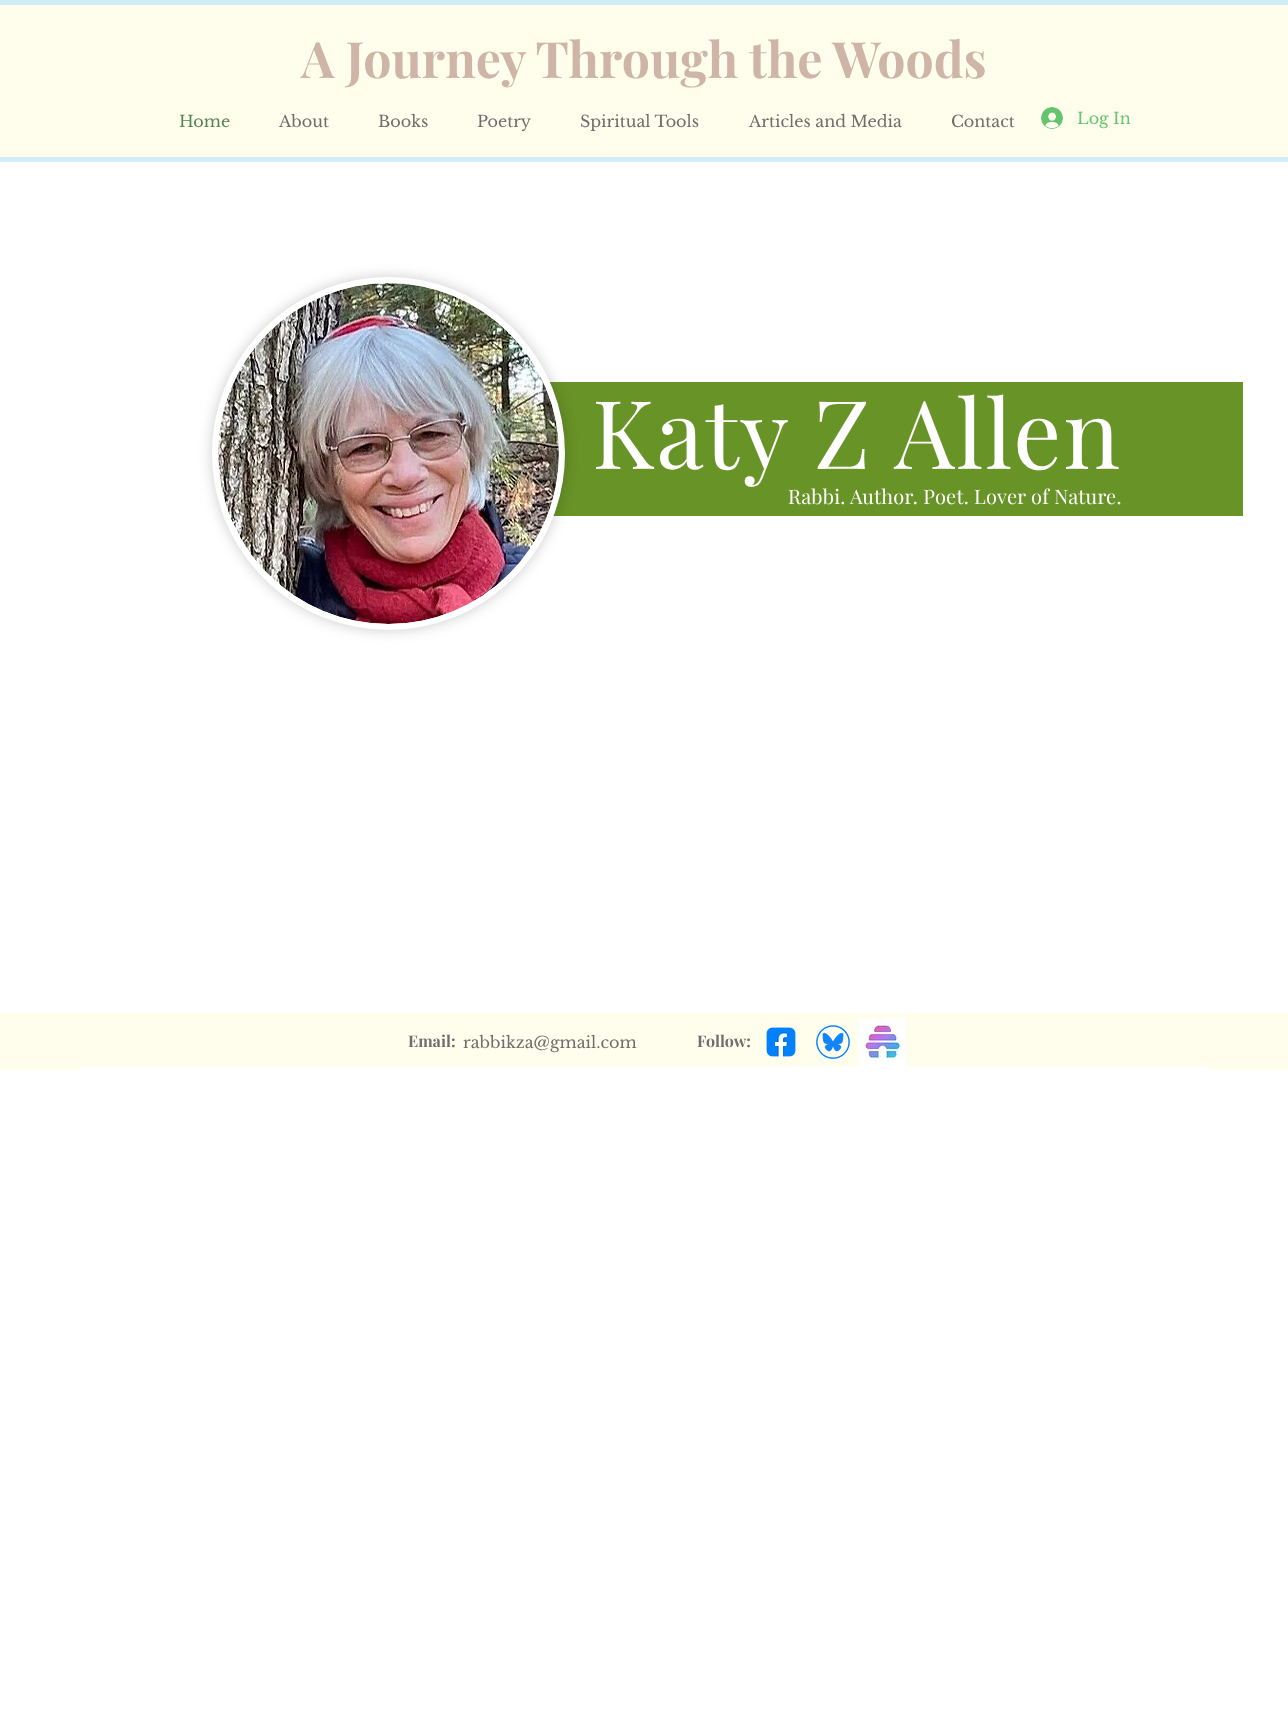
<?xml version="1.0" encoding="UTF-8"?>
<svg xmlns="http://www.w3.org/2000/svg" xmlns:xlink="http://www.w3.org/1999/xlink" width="1288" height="1711">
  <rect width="100%" height="100%" fill="#ffffff" />
  <rect width="1288" height="5" fill="#d0ecf7" />
  <rect y="157" width="1288" height="5" fill="#d0ecf7" />
  <rect y="5" width="1288" height="152" fill="#fffeed" />
  <image x="1041" y="107" width="22" height="22" xlink:href="image1.png" />
  <rect x="549" y="382" width="694" height="134" fill="#689327" />
  <rect x="212" y="277" width="353" height="353" rx="176.5" fill="#000000" fill-opacity="0.2" filter="blur(7px)" />
  <circle cx="388.5" cy="453.5" r="173.5" fill="#ffffff" stroke="#ffffff" stroke-width="6" />
  <image x="218" y="283" width="341" height="341" xlink:href="image2.png" />
  <rect y="1013" width="1288" height="57" fill="#fffeed" />
  <image x="766" y="1027" width="30" height="30" xlink:href="image3.png" />
  <image x="816" y="1025" width="34" height="34" xlink:href="image4.png" />
  <image x="858" y="1018" width="48" height="48" xlink:href="image5.png" />
  <rect x="80" y="1066" width="1128" height="4" fill="#ffffff" />
  <text x="301" y="78" style="font-family: Playfair Display; font-size: 50px; font-weight: bold; fill: #ceb5a7">A Journey Through the Woods</text>
  <text x="179" y="127" style="font-family: Libre Baskerville; font-size: 16px; fill: #56825a">Home</text>
  <text x="279" y="127" style="font-family: Libre Baskerville; font-size: 16px; fill: #6e6e6e">About</text>
  <text x="378" y="127" style="font-family: Libre Baskerville; font-size: 16px; fill: #6e6e6e">Books</text>
  <text x="477" y="127" style="font-family: Libre Baskerville; font-size: 16px; fill: #6e6e6e">Poetry</text>
  <text x="580" y="127" style="font-family: Libre Baskerville; font-size: 16px; fill: #6e6e6e">Spiritual Tools</text>
  <text x="749" y="127" style="font-family: Libre Baskerville; font-size: 16px; fill: #6e6e6e">Articles and Media</text>
  <text x="951" y="127" style="font-family: Libre Baskerville; font-size: 16px; fill: #6e6e6e">Contact</text>
  <text x="1077" y="124" style="font-family: Libre Baskerville; font-size: 16px; fill: #65c470">Log In</text>
  <text x="592" y="469" style="font-family: Playfair Display; font-size: 95px; letter-spacing: 1.9px; fill: #ffffff">Katy Z Allen</text>
  <text x="788" y="504" style="font-family: Playfair Display; font-size: 20px; letter-spacing: 0.2px; fill: #ffffff">Rabbi. Author. Poet. Lover of Nature.</text>
  <text x="408" y="1047" style="font-family: Playfair Display; font-size: 16px; font-weight: bold; fill: #6e6e6e">Email:</text>
  <text x="463" y="1048" style="font-family: Libre Baskerville; font-size: 16px; fill: #6e6e6e">rabbikza@gmail.com</text>
  <text x="697" y="1047" style="font-family: Playfair Display; font-size: 16px; font-weight: bold; fill: #6e6e6e">Follow:</text>
</svg>
